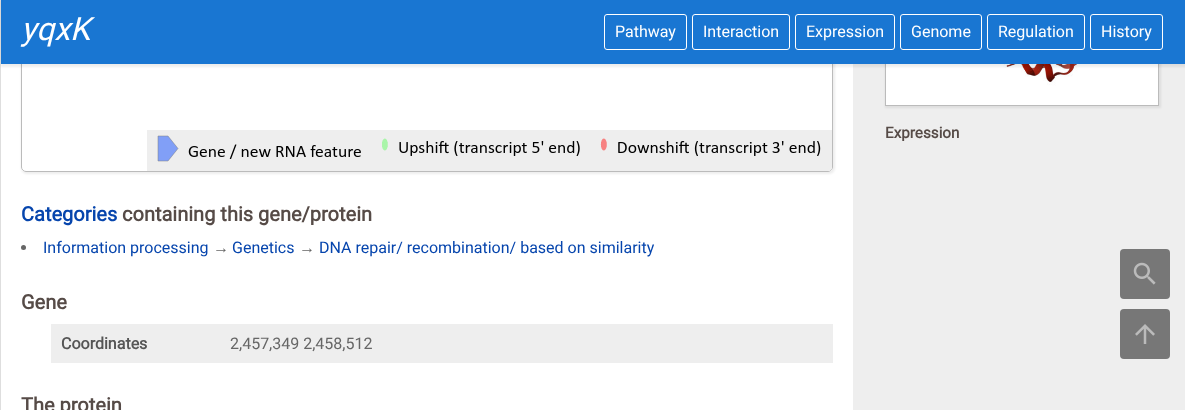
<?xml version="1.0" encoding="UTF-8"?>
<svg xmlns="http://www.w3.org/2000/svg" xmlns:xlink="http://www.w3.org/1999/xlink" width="1185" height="410">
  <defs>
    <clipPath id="clip1"><path d="M 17 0 h 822 v 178 h -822 z m 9 -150 h 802 c 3 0 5 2 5 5 v 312 c 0 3 -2 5 -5 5 h -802 c -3 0 -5 -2 -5 -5 v -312 c 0 -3 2 -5 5 -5 z" clip-rule="evenodd" /></clipPath>
  </defs>
  <rect width="100%" height="100%" fill="#eeeeee" />
  <rect width="1" height="410" fill="#dedede" />
  <rect x="885" y="-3" width="276" height="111" fill="#000000" fill-opacity="0.07" filter="blur(1px)" />
  <rect x="885.5" y="-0.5" width="273" height="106" fill="none" stroke="#bbbbbb" />
  <image x="886" y="64" width="272" height="41" xlink:href="image1.png" />
  <rect x="1" y="64" width="852" height="346" fill="#ffffff" />
  <g clip-path="url(#clip1)">
    <rect x="21" y="-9" width="814" height="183" rx="6" fill="#000000" fill-opacity="0.07" filter="blur(1px)" />
  </g>
  <rect x="21.5" y="-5.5" width="811" height="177" rx="4.5" fill="none" stroke="#bbbbbb" />
  <rect x="1" y="1" width="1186" height="66" fill="#000000" fill-opacity="0.07" filter="blur(1px)" />
  <rect x="1" width="1184" height="64" fill="#1976d2" />
  <rect x="604.5" y="14.5" width="82" height="35" rx="2.5" fill="none" stroke="#ffffff" />
  <rect x="692.5" y="14.5" width="97" height="35" rx="2.5" fill="none" stroke="#ffffff" />
  <rect x="795.5" y="14.5" width="99" height="35" rx="2.5" fill="none" stroke="#ffffff" />
  <rect x="900.5" y="14.5" width="81" height="35" rx="2.5" fill="none" stroke="#ffffff" />
  <rect x="987.5" y="14.5" width="97" height="35" rx="2.5" fill="none" stroke="#ffffff" />
  <rect x="1090.5" y="14.5" width="72" height="35" rx="2.5" fill="none" stroke="#ffffff" />
  <image x="147" y="130" width="685" height="41" xlink:href="image2.png" />
  <circle cx="23.5" cy="247.5" r="2.5" fill="#666666" />
  <rect x="51" y="324" width="782" height="39" fill="#eeeeee" />
  <rect x="1120" y="249" width="50" height="50" rx="4" fill="#777777" />
  <image x="1133" y="262" width="23" height="23" xlink:href="image3.png" />
  <rect x="1120" y="309" width="50" height="50" rx="4" fill="#777777" />
  <image x="1135" y="324" width="20" height="20" xlink:href="image4.png" />
  <text x="21" y="40" style="font-family: Roboto; font-size: 32px; font-style: italic; fill: #ffffff">yqxK</text>
  <text x="615" y="37" style="font-family: Roboto; font-size: 16px; fill: #ffffff">Pathway</text>
  <text x="703" y="37" style="font-family: Roboto; font-size: 16px; fill: #ffffff">Interaction</text>
  <text x="806" y="37" style="font-family: Roboto; font-size: 16px; fill: #ffffff">Expression</text>
  <text x="911" y="37" style="font-family: Roboto; font-size: 16px; fill: #ffffff">Genome</text>
  <text x="998" y="37" style="font-family: Roboto; font-size: 16px; fill: #ffffff">Regulation</text>
  <text x="1101" y="37" style="font-family: Roboto; font-size: 16px; fill: #ffffff">History</text>
  <text x="885" y="138" style="font-family: Roboto; font-size: 15.25px; font-weight: bold; fill: #564b47">Expression</text>
  <text x="21" y="221" style="font-family: Roboto; font-size: 20px; font-weight: bold; fill: #0645ad">Categories</text>
  <text x="122" y="221" style="font-family: Roboto; font-size: 20px; font-weight: bold; fill: #564b47">containing this gene/protein</text>
  <text x="43" y="253" style="font-family: Roboto; font-size: 16px; fill: #0645ad">Information processing</text>
  <text x="232" y="253" style="font-family: Roboto; font-size: 16px; fill: #0645ad">Genetics</text>
  <text x="319" y="253" style="font-family: Roboto; font-size: 16px; fill: #0645ad">DNA repair/ recombination/ based on similarity</text>
  <text x="213" y="253" style="font-family: Liberation Sans; font-size: 16px; fill: #666666">→</text>
  <text x="299" y="253" style="font-family: Liberation Sans; font-size: 16px; fill: #666666">→</text>
  <text x="21" y="309" style="font-family: Roboto; font-size: 20px; font-weight: bold; fill: #564b47">Gene</text>
  <text x="61" y="349" style="font-family: Roboto; font-size: 16px; font-weight: bold; fill: #555555">Coordinates</text>
  <text x="230" y="349" style="font-family: Roboto; font-size: 16px; fill: #666666">2,457,349 2,458,512</text>
  <text x="21" y="412" style="font-family: Roboto; font-size: 20px; font-weight: bold; fill: #564b47">The protein</text>
</svg>
